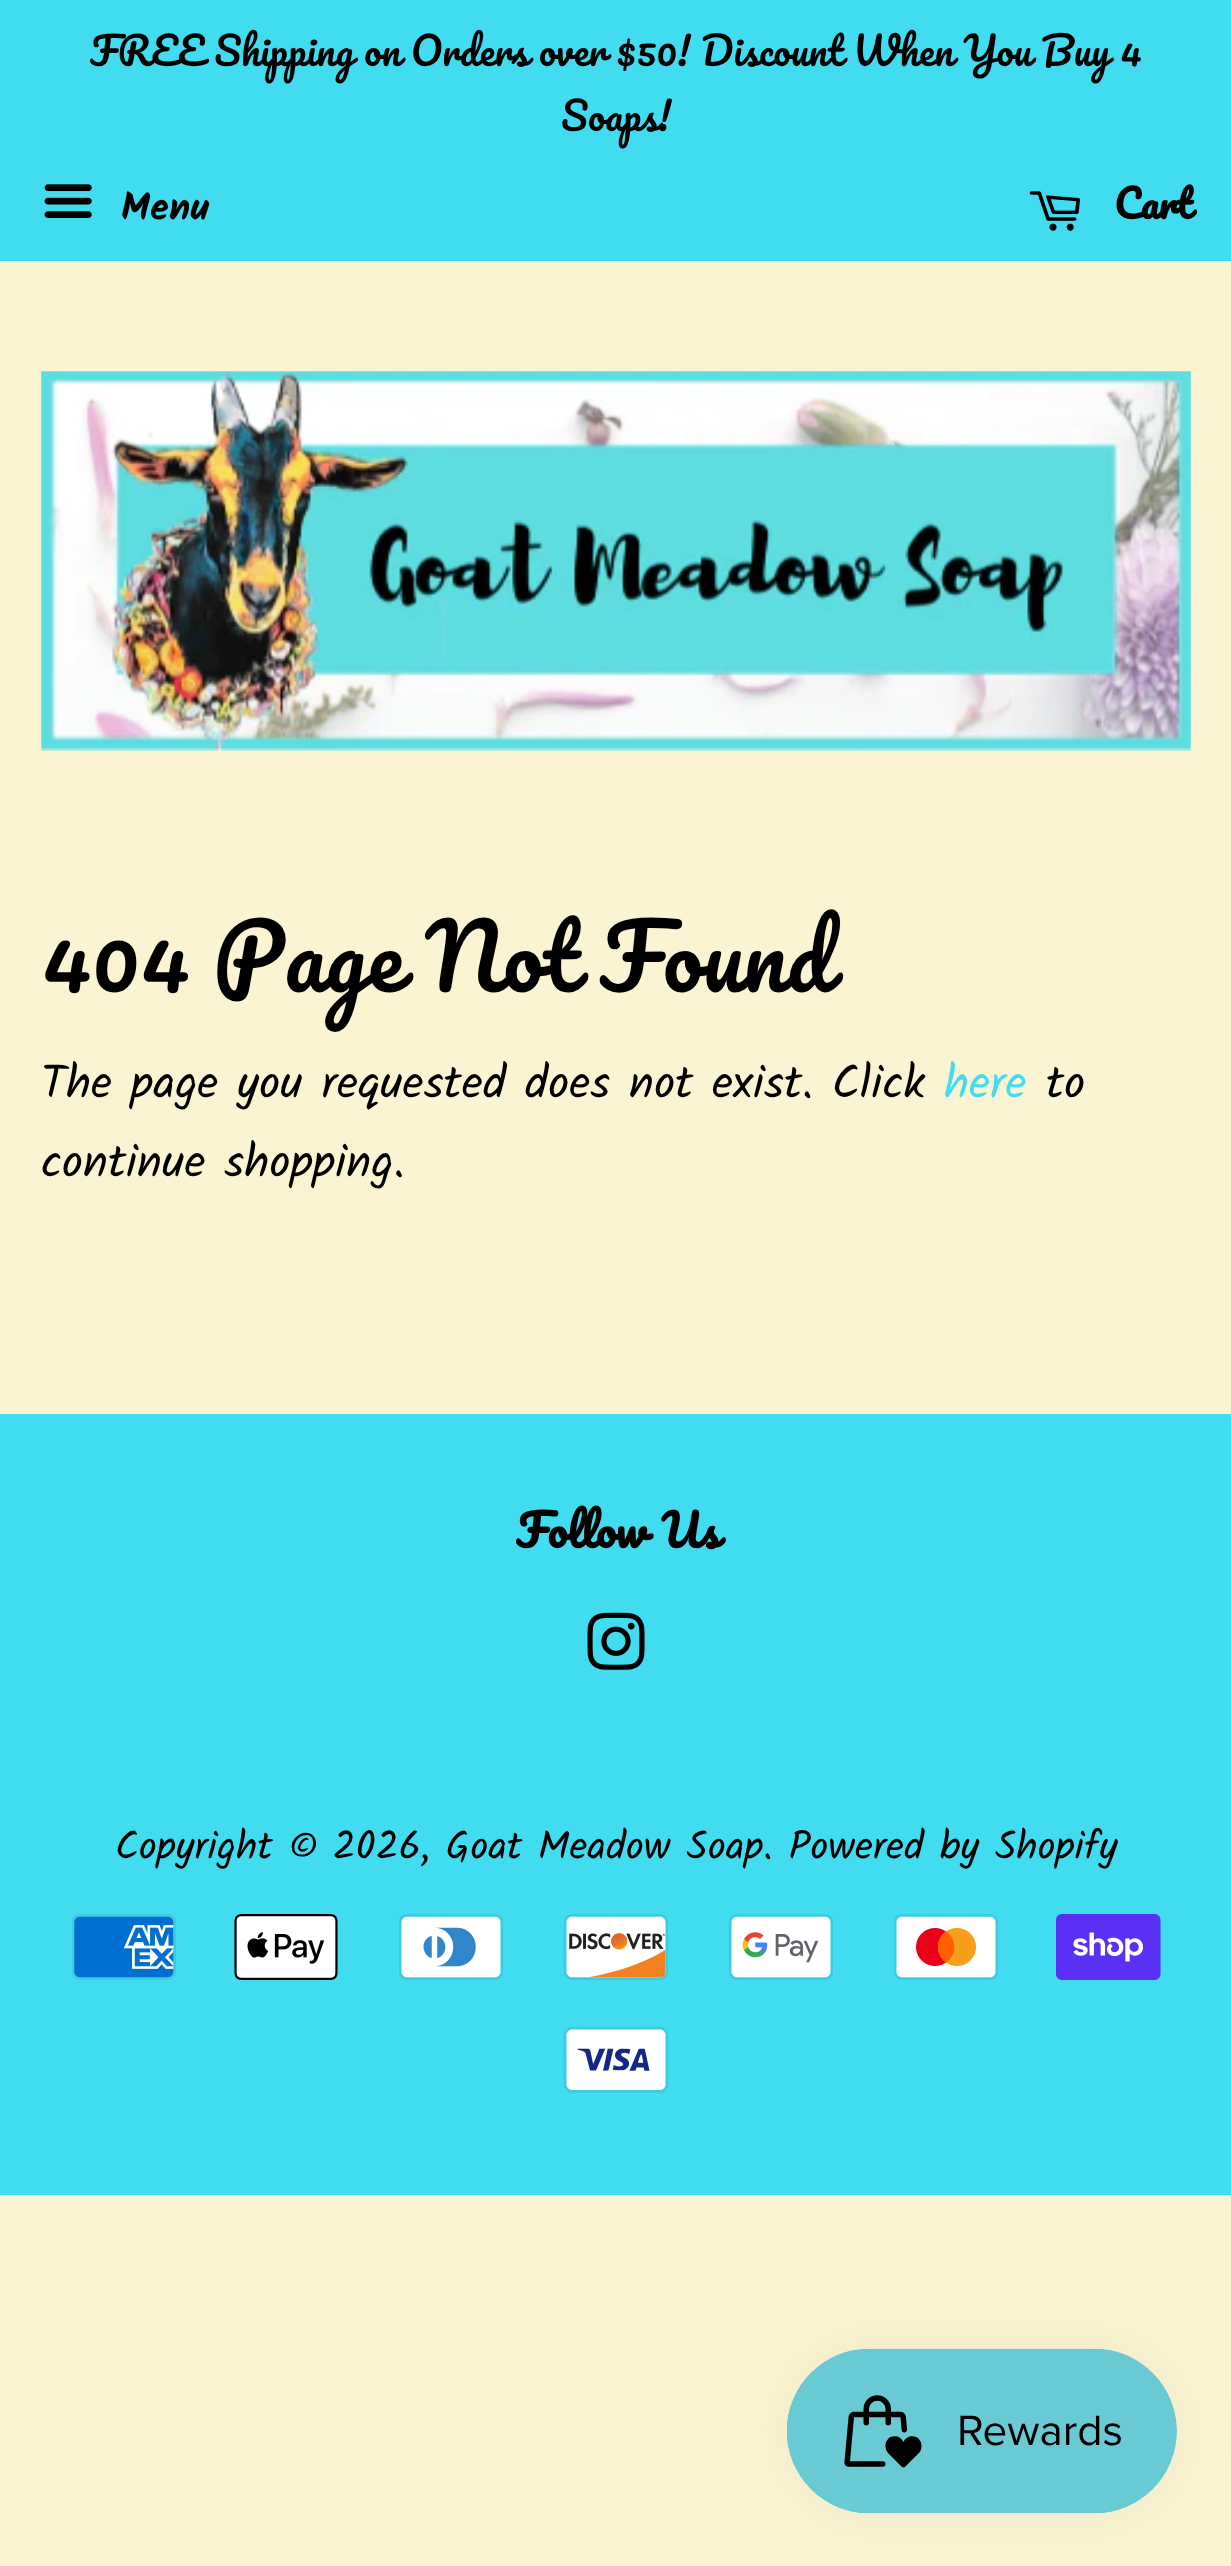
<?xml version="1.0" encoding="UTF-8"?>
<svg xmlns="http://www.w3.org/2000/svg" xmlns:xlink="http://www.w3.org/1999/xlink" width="1231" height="2566">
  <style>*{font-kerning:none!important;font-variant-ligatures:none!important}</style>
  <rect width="100%" height="100%" fill="#faf4d3" />
  <rect width="1231" height="261" fill="#41dcf0" />
  <image x="44" y="184" width="48" height="34" xlink:href="image1.png" />
  <image x="1029" y="191" width="51" height="40" xlink:href="image2.png" />
  <image x="41" y="371" width="1150" height="380" xlink:href="image3.png" />
  <rect y="1414" width="1231" height="781" fill="#41dcf0" />
  <image x="587" y="1612" width="58" height="58" xlink:href="image4.png" />
  <image x="72" y="1914" width="104" height="66" xlink:href="image5.png" />
  <image x="234" y="1914" width="104" height="66" xlink:href="image6.png" />
  <image x="399" y="1914" width="104" height="66" xlink:href="image7.png" />
  <image x="564" y="1914" width="104" height="66" xlink:href="image8.png" />
  <image x="729" y="1914" width="104" height="66" xlink:href="image9.png" />
  <image x="894" y="1914" width="104" height="66" xlink:href="image10.png" />
  <image x="1056" y="1914" width="105" height="66" xlink:href="image11.png" />
  <image x="564" y="2027" width="104" height="66" xlink:href="image12.png" />
  <rect x="787" y="2349" width="390" height="165" rx="82.5" fill="#000000" fill-opacity="0.05" filter="blur(34.5px)" />
  <image x="786" y="2348" width="391" height="166" xlink:href="image13.png" />
  <text x="90" y="66" style="font-family: Pacifico; font-size: 38.5px; fill: #000000">FREE Shipping on Orders over $50!</text>
  <text x="701" y="66" style="font-family: Pacifico; font-size: 38.5px; fill: #000000">Discount When You Buy 4</text>
  <text x="561" y="131" style="font-family: Pacifico; font-size: 38.5px; fill: #000000">Soaps!</text>
  <text x="121" y="220" style="font-family: Kalam; font-size: 38.5px; font-weight: bold; fill: #000000">Menu</text>
  <text x="1114" y="219" style="font-family: Pacifico; font-size: 38.5px; font-weight: bold; fill: #000000">Cart</text>
  <text x="41" y="992" word-spacing="-0.5" style="font-family: Pacifico; font-size: 88px; fill: #000000">404 Page Not Found</text>
  <text x="41" y="1098" style="font-family: Kalam; font-size: 46.75px; fill: #000000">The page you requested does not exist. Click</text>
  <text x="944" y="1098" style="font-family: Kalam; font-size: 46.75px; fill: #41dcf0">here</text>
  <text x="1046" y="1098" style="font-family: Kalam; font-size: 46.75px; fill: #000000">to</text>
  <text x="41" y="1177" style="font-family: Kalam; font-size: 46.75px; fill: #000000">continue shopping.</text>
  <text x="516" y="1548" word-spacing="3" style="font-family: Pacifico; font-size: 44px; font-weight: bold; fill: #000000">Follow Us</text>
  <text x="115" y="1859" style="font-family: Kalam; font-size: 39.75px; fill: #000000">Copyright © 2026, Goat Meadow Soap. Powered by Shopify</text>
</svg>
